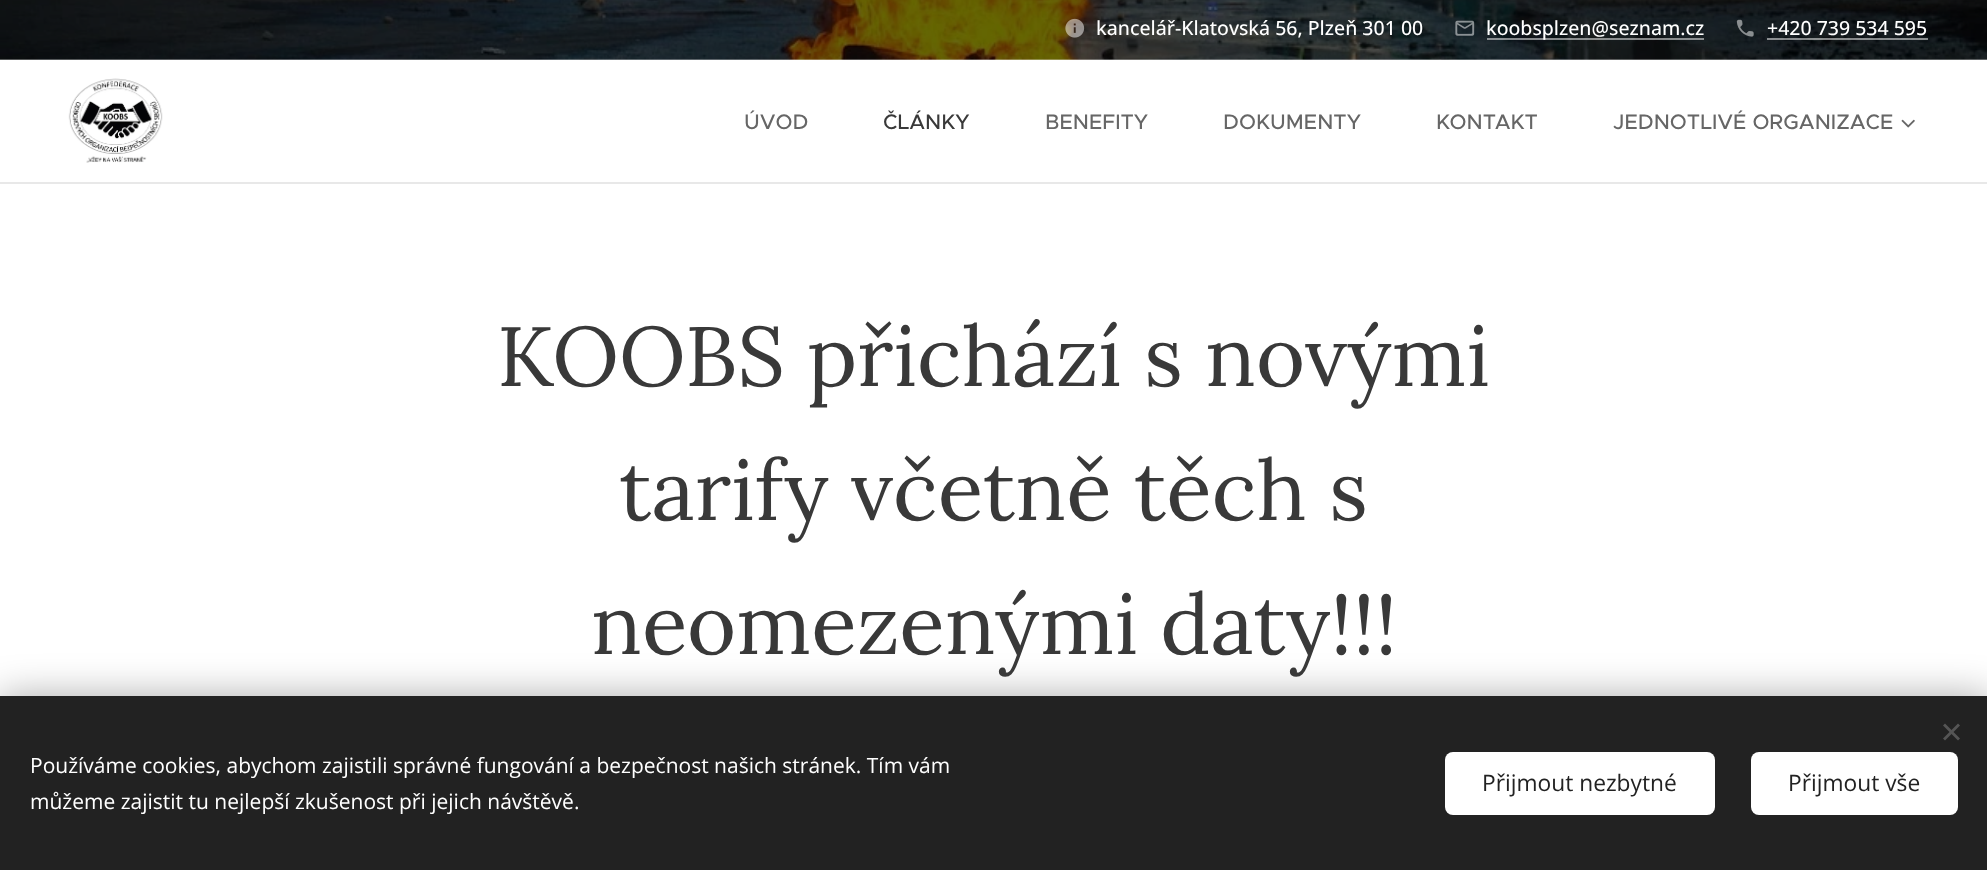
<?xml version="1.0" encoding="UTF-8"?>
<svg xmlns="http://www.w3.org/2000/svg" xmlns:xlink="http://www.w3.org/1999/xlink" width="1987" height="870">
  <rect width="100%" height="100%" fill="#ffffff" />
  <image x="0" y="0" width="1987" height="60" xlink:href="image1.png" />
  <image x="1065" y="18" width="20" height="20" xlink:href="image2.png" />
  <image x="1455" y="20" width="20" height="16" xlink:href="image3.png" />
  <rect x="1487" y="38" width="217" height="2" fill="#ffffff" fill-opacity="0.5" />
  <image x="1736" y="19" width="18" height="18" xlink:href="image4.png" />
  <rect x="1767" y="38" width="161" height="2" fill="#ffffff" fill-opacity="0.5" />
  <rect y="59" width="1987" height="1" fill="#ffffff" fill-opacity="0.3" />
  <image x="68" y="78" width="95" height="85" xlink:href="image5.png" />
  <image x="1901" y="119" width="14" height="9" xlink:href="image6.png" />
  <rect y="182" width="1987" height="2" fill="#e8e8e8" />
  <rect y="696" width="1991" height="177" fill="#000000" fill-opacity="0.33" filter="blur(19px)" />
  <rect y="696" width="1987" height="174" fill="#222222" />
  <path d="M 1943 738.5 l 15 -15 l 2 2 l -15 15 z" fill="#555555" />
  <path d="M 1945 723.5 l 15 15 l -2 2 l -15 -15 z" fill="#555555" />
  <rect x="1445" y="752" width="270" height="63" rx="8" fill="#ffffff" />
  <rect x="1751" y="752" width="207" height="63" rx="8" fill="#ffffff" />
  <text x="1096" y="35" style="font-family: Open Sans; font-size: 19.5px; font-weight: 500; fill: #ffffff">kancelář-Klatovská 56, Plzeň 301 00</text>
  <text x="1486" y="35" style="font-family: Open Sans; font-size: 19.5px; font-weight: 500; fill: #ffffff">koobsplzen@seznam.cz</text>
  <text x="1767" y="35" style="font-family: Open Sans; font-size: 19.5px; font-weight: 500; fill: #ffffff">+420 739 534 595</text>
  <text x="744" y="129" style="font-family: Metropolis; font-size: 21px; font-weight: 500; fill: #666666">ÚVOD</text>
  <text x="883" y="129" style="font-family: Metropolis; font-size: 21px; font-weight: 500; fill: #393939">ČLÁNKY</text>
  <text x="1045" y="129" style="font-family: Metropolis; font-size: 21px; font-weight: 500; fill: #666666">BENEFITY</text>
  <text x="1223" y="129" style="font-family: Metropolis; font-size: 21px; font-weight: 500; fill: #666666">DOKUMENTY</text>
  <text x="1436" y="129" style="font-family: Metropolis; font-size: 21px; font-weight: 500; fill: #666666">KONTAKT</text>
  <text x="1613" y="129" style="font-family: Metropolis; font-size: 21px; font-weight: 500; fill: #666666">JEDNOTLIVÉ ORGANIZACE</text>
  <text x="497" y="386" style="font-family: Lora; font-size: 84px; fill: #393939">KOOBS přichází s novými</text>
  <text x="619" y="520" style="font-family: Lora; font-size: 84px; fill: #393939">tarify včetně těch s</text>
  <text x="591" y="654" style="font-family: Lora; font-size: 84px; fill: #393939">neomezenými daty!!!</text>
  <text x="30" y="773" style="font-family: Open Sans; font-size: 21px; fill: #ffffff">Používáme cookies, abychom zajistili správné fungování a bezpečnost našich stránek. Tím vám</text>
  <text x="30" y="809" style="font-family: Open Sans; font-size: 21px; fill: #ffffff">můžeme zajistit tu nejlepší zkušenost při jejich návštěvě.</text>
  <text x="1482" y="791" style="font-family: Open Sans; font-size: 22.75px; fill: #222222">Přijmout nezbytné</text>
  <text x="1788" y="791" style="font-family: Open Sans; font-size: 22.75px; fill: #222222">Přijmout vše</text>
</svg>
